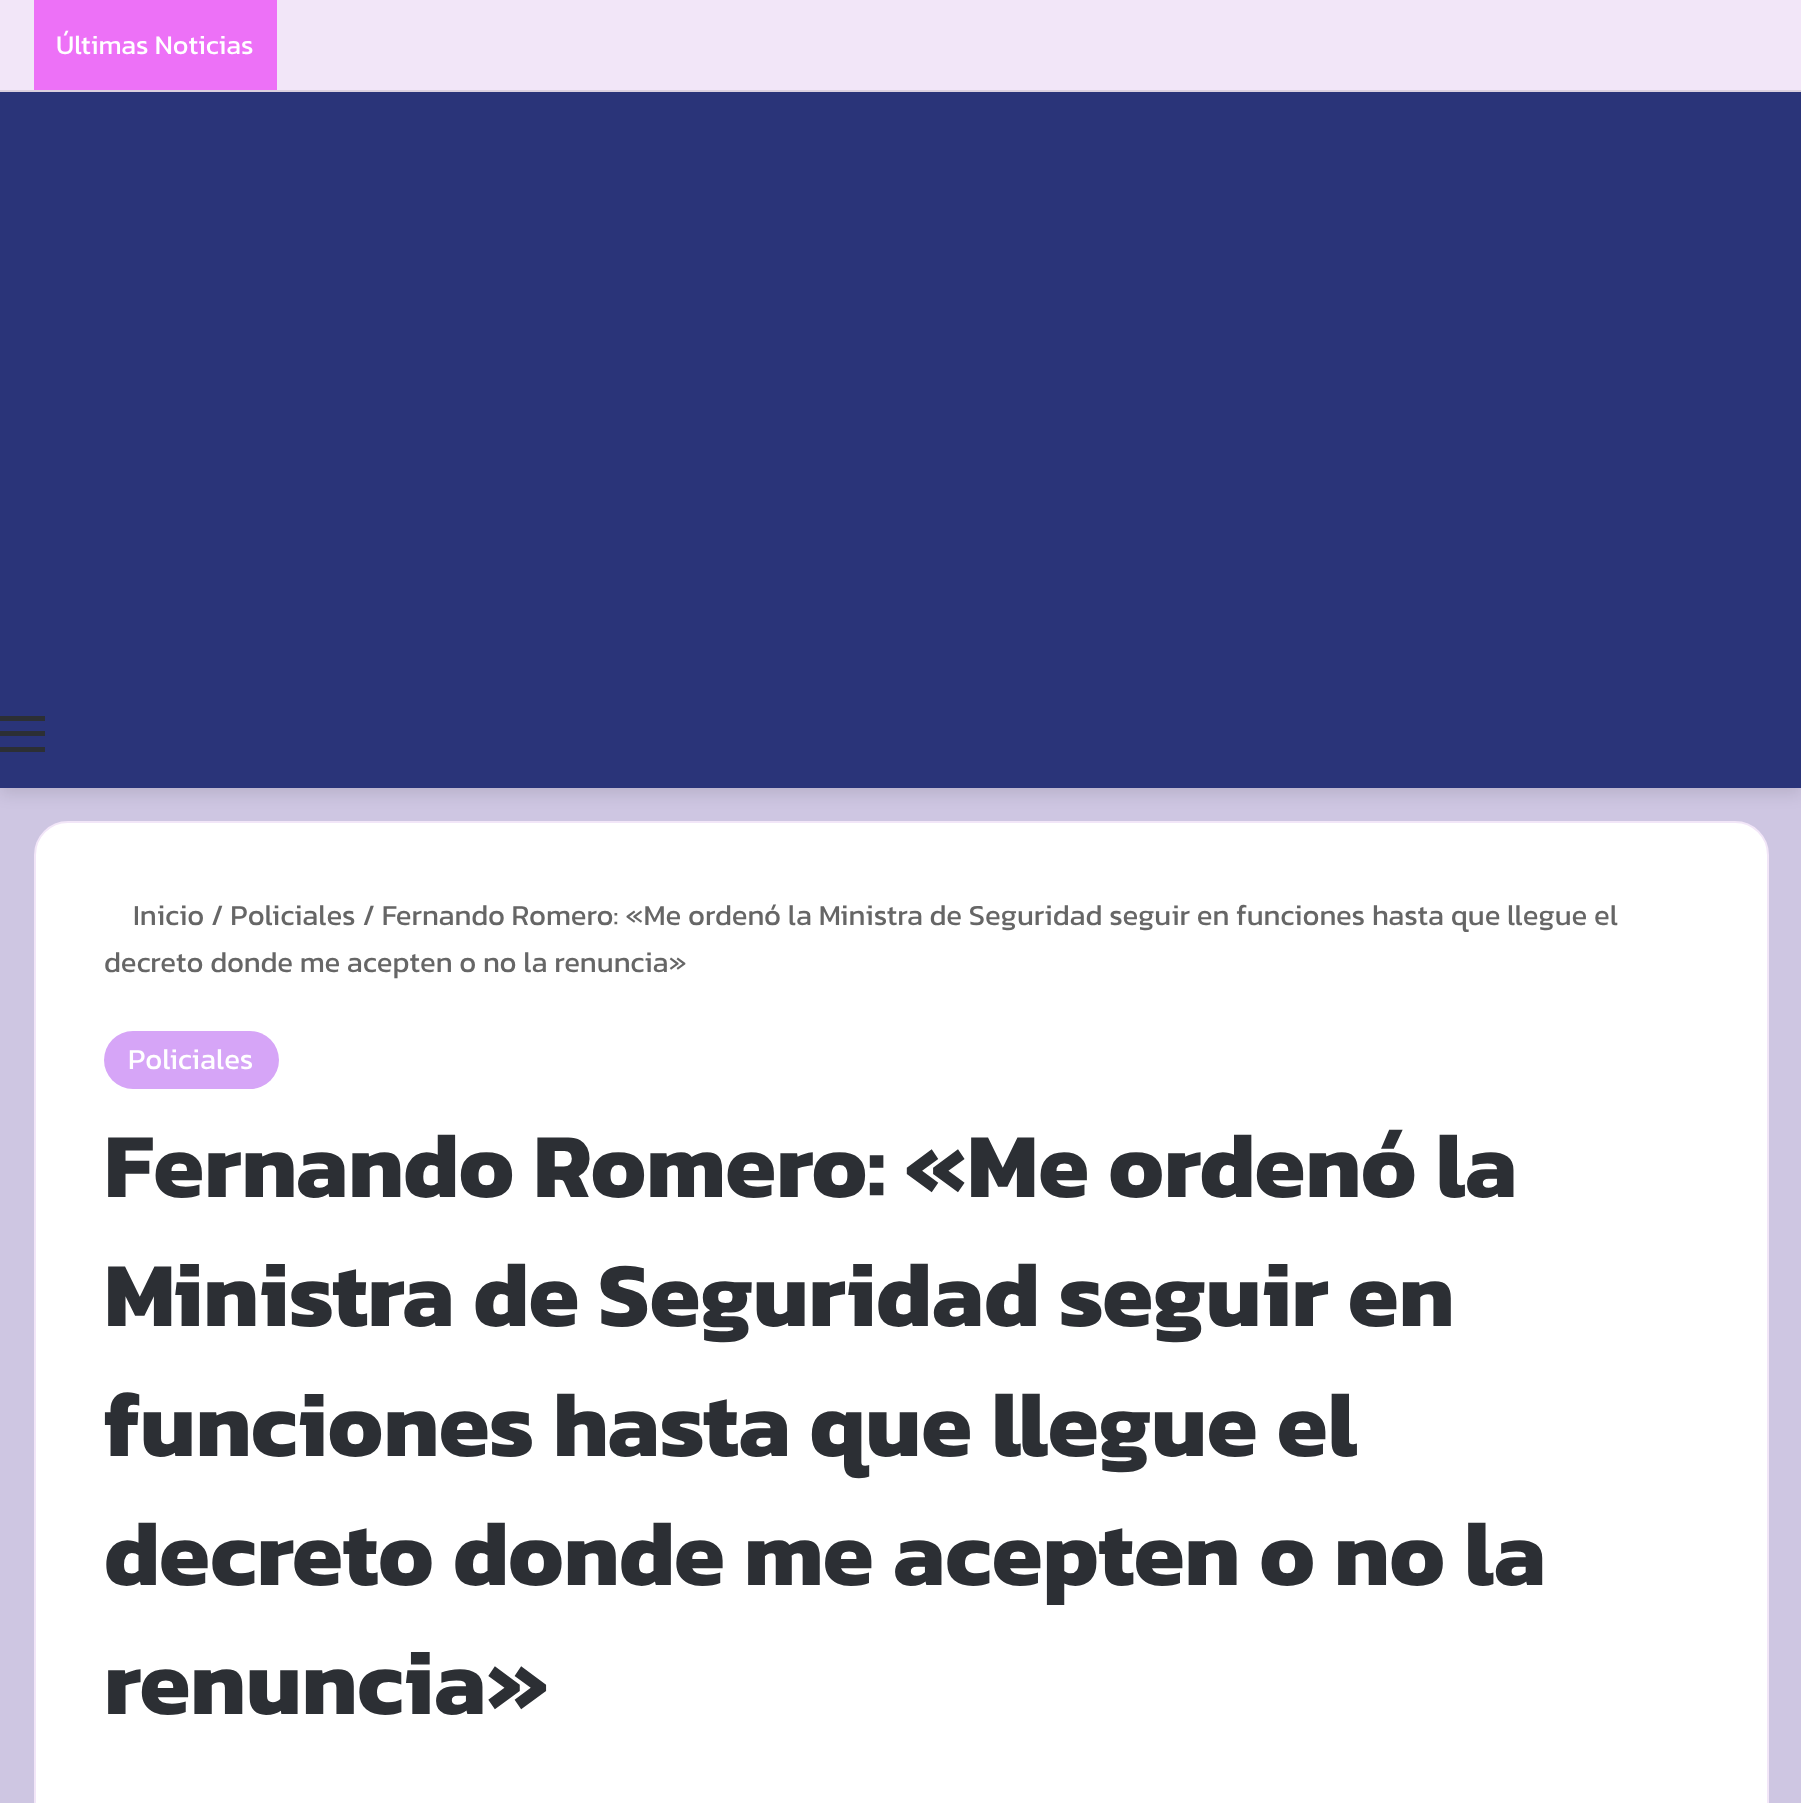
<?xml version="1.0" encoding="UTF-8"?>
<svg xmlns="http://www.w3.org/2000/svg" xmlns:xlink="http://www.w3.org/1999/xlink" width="1801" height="1803">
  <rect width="100%" height="100%" fill="#cec6e2" />
  <rect y="99" width="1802" height="695" fill="#000000" fill-opacity="0.1" filter="blur(8px)" />
  <rect width="1801" height="90" fill="#f2e6f8" />
  <rect y="90" width="1801" height="2" fill="#dacfdf" />
  <rect x="34" width="243" height="90" fill="#ed71f7" />
  <rect y="92" width="1801" height="696" fill="#2a3479" />
  <rect y="731" width="45" height="5" fill="#2c2f34" />
  <rect y="716" width="45" height="5" fill="#2c2f34" />
  <rect y="747" width="45" height="5" fill="#2c2f34" />
  <rect x="35" y="822" width="1733" height="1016" rx="33" fill="#ffffff" stroke="#f2e6f8" stroke-width="2" />
  <rect x="104" y="1031" width="175" height="58" rx="29" fill="#d6a5f7" />
  <text x="56" y="54" style="font-family: Kanit; font-size: 27px; fill: #ffffff">Últimas Noticias</text>
  <text x="133" y="925" style="font-family: Kanit; font-size: 29.25px; fill: #666666">Inicio / Policiales / Fernando Romero: «Me ordenó la Ministra de Seguridad seguir en funciones hasta que llegue el</text>
  <text x="104" y="972" style="font-family: Kanit; font-size: 29.25px; fill: #666666">decreto donde me acepten o no la renuncia»</text>
  <text x="128" y="1069" style="font-family: Kanit; font-size: 29.25px; fill: #ffffff">Policiales</text>
  <text x="104" y="1197" style="font-family: Kanit; font-size: 92.25px; font-weight: bold; fill: #2c2f34">Fernando Romero: «Me ordenó la</text>
  <text x="104" y="1326" style="font-family: Kanit; font-size: 92.25px; font-weight: bold; fill: #2c2f34">Ministra de Seguridad seguir en</text>
  <text x="104" y="1456" style="font-family: Kanit; font-size: 92.25px; font-weight: bold; fill: #2c2f34">funciones hasta que llegue el</text>
  <text x="104" y="1585" style="font-family: Kanit; font-size: 92.25px; font-weight: bold; fill: #2c2f34">decreto donde me acepten o no la</text>
  <text x="104" y="1714" style="font-family: Kanit; font-size: 92.25px; font-weight: bold; fill: #2c2f34">renuncia»</text>
</svg>
